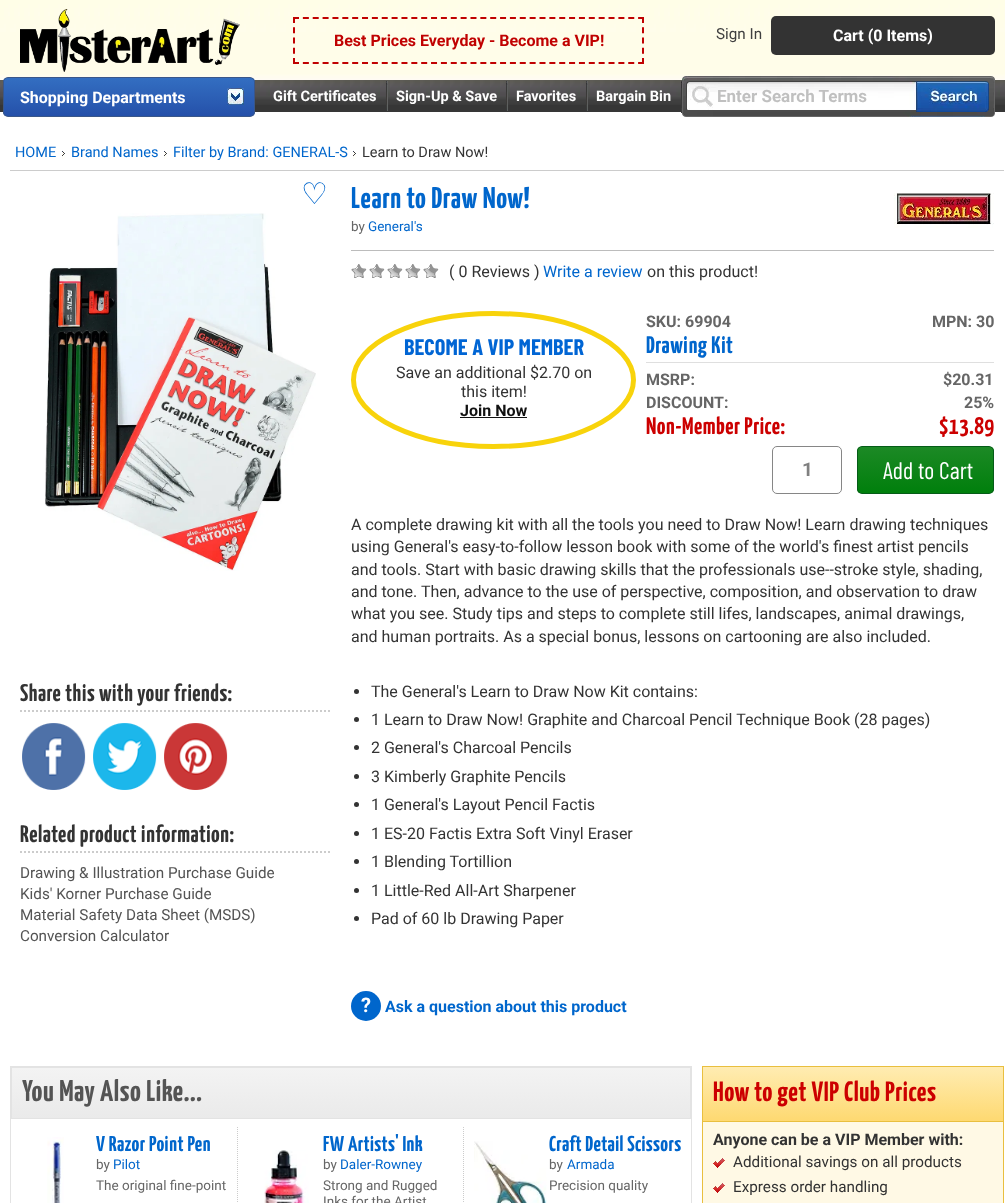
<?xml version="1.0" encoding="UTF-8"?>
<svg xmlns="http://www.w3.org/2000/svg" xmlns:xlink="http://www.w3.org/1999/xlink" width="1005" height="1203">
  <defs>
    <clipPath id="clip1"><rect x="3" y="77" width="252" height="40" rx="5" /></clipPath>
    <linearGradient id="g1" gradientUnits="userSpaceOnUse" x1="129" y1="78" x2="129" y2="116"><stop offset="0" stop-color="#336ec1" /><stop offset="0.66" stop-color="#2a5bb2" /><stop offset="1" stop-color="#2550a9" /></linearGradient>
    <clipPath id="clip2"><rect x="857" y="446" width="137" height="48" rx="5" /></clipPath>
    <linearGradient id="g2" gradientUnits="userSpaceOnUse" x1="926" y1="447" x2="926" y2="493"><stop offset="0.01" stop-color="#1c8925" /><stop offset="1" stop-color="#007f0c" /></linearGradient>
    <linearGradient id="g3" gradientUnits="userSpaceOnUse" x1="351" y1="1068" x2="351" y2="1118"><stop offset="0.01" stop-color="#f3f3f3" /><stop offset="1" stop-color="#eaeaea" /></linearGradient>
    <linearGradient id="g4" gradientUnits="userSpaceOnUse" x1="853" y1="1067" x2="853" y2="1121"><stop offset="0" stop-color="#ffecb2" /><stop offset="1" stop-color="#fed971" /></linearGradient>
  </defs>
  <rect width="100%" height="100%" fill="#ffffff" />
  <rect y="105" width="1005" height="7" fill="#363636" />
  <image x="0" y="0" width="1005" height="105" xlink:href="image1.png" />
  <image x="20" y="9" width="220" height="63" xlink:href="image2.png" />
  <path d="M 293 18 h 351" fill="none" stroke="#c00101" stroke-width="2" stroke-dasharray="6 3.86" />
  <path d="M 643 17 v 47" fill="none" stroke="#c00101" stroke-width="2" stroke-dasharray="6 4.25" />
  <path d="M 293 63 h 351" fill="none" stroke="#c00101" stroke-width="2" stroke-dasharray="6 3.86" />
  <path d="M 294 17 v 47" fill="none" stroke="#c00101" stroke-width="2" stroke-dasharray="6 4.25" />
  <rect x="771" y="16" width="224" height="39" rx="5" fill="#333333" />
  <g clip-path="url(#clip1)">
    <rect x="3" y="78" width="252" height="38" fill="url(#g1)" />
  </g>
  <rect x="3.5" y="77.5" width="251" height="39" rx="4.5" fill="none" stroke="#3a5789" />
  <image x="227" y="88" width="17" height="17" xlink:href="image3.png" />
  <image x="386" y="81" width="2" height="30" xlink:href="image4.png" />
  <image x="506" y="81" width="2" height="30" xlink:href="image5.png" />
  <image x="586" y="81" width="2" height="30" xlink:href="image5.png" />
  <image x="681" y="76" width="314" height="41" xlink:href="image6.png" />
  <image x="686" y="81" width="230" height="29" xlink:href="image7.png" />
  <image x="916" y="81" width="73" height="31" xlink:href="image8.png" />
  <rect x="10" y="170" width="994" height="1" fill="#cccccc" />
  <image x="62" y="151" width="3" height="8" xlink:href="image9.png" />
  <image x="164" y="151" width="3" height="8" xlink:href="image9.png" />
  <image x="353" y="151" width="3" height="8" xlink:href="image9.png" />
  <image x="45" y="213" width="271" height="358" xlink:href="image10.png" />
  <path d="M 20 711 h 311" fill="none" stroke="#cccccc" stroke-width="2" stroke-dasharray="2 2" />
  <image x="22" y="723" width="64" height="67" xlink:href="image11.png" />
  <image x="93" y="723" width="64" height="67" xlink:href="image12.png" />
  <image x="164" y="723" width="64" height="67" xlink:href="image13.png" />
  <path d="M 20 852 h 311" fill="none" stroke="#cccccc" stroke-width="2" stroke-dasharray="2 2" />
  <rect x="351" y="250" width="643" height="1" fill="#bcbcbc" />
  <image x="894" y="193" width="100" height="35" xlink:href="image14.png" />
  <image x="351" y="264" width="88" height="14" xlink:href="image15.png" />
  <path d="M 493.5 313.5 c 77.5 0 140 30 140 66.5 c 0 36.5 -62.5 66.5 -140 66.5 c -77.5 0 -140 -30 -140 -66.5 c 0 -36.5 62.5 -66.5 140 -66.5 z" fill="none" stroke="#f8d30b" stroke-width="5" />
  <rect x="460" y="417" width="67" height="1" fill="#111111" />
  <rect x="646" y="362" width="348" height="1" fill="#dfdfdf" />
  <rect x="772.5" y="446.5" width="69" height="47" rx="4.5" fill="none" stroke="#868686" />
  <g clip-path="url(#clip2)">
    <rect x="857" y="447" width="137" height="46" fill="url(#g2)" />
  </g>
  <rect x="857.5" y="446.5" width="136" height="47" rx="4.5" fill="none" stroke="#055c18" />
  <circle cx="356.5" cy="691.5" r="2.5" fill="#333333" />
  <circle cx="356.5" cy="719.5" r="2.5" fill="#333333" />
  <circle cx="356.5" cy="747.5" r="2.5" fill="#333333" />
  <circle cx="356.5" cy="776.5" r="2.5" fill="#333333" />
  <circle cx="356.5" cy="804.5" r="2.5" fill="#333333" />
  <circle cx="356.5" cy="833.5" r="2.5" fill="#333333" />
  <circle cx="356.5" cy="861.5" r="2.5" fill="#333333" />
  <circle cx="356.5" cy="890.5" r="2.5" fill="#333333" />
  <circle cx="356.5" cy="918.5" r="2.5" fill="#333333" />
  <circle cx="366" cy="1006" r="15" fill="#0066cc" />
  <rect x="10.5" y="1066.5" width="681" height="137" fill="none" stroke="#e3e3e3" />
  <rect x="12" y="1068" width="678" height="50" fill="url(#g3)" />
  <rect x="11.5" y="1067.5" width="679" height="51" fill="none" stroke="#e3e3e3" />
  <path d="M 237.5 1127 v 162" fill="none" stroke="#cccccc" stroke-dasharray="1 1" />
  <image x="47" y="1137" width="17" height="66" xlink:href="image16.png" />
  <path d="M 463.5 1127 v 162" fill="none" stroke="#cccccc" stroke-dasharray="1 1" />
  <image x="264" y="1150" width="45" height="53" xlink:href="image17.png" />
  <image x="474" y="1141" width="73" height="62" xlink:href="image18.png" />
  <rect x="703" y="1122" width="300" height="81" fill="#fff9e5" />
  <rect x="702.5" y="1066.5" width="301" height="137" fill="none" stroke="#e9bf3f" />
  <rect x="703" y="1067" width="300" height="54" fill="url(#g4)" />
  <rect x="703" y="1121" width="300" height="1" fill="#e9bf3f" />
  <image x="713" y="1158" width="12" height="10" xlink:href="image19.png" />
  <image x="713" y="1183" width="12" height="10" xlink:href="image19.png" />
  <text x="334" y="46" style="font-family: Roboto; font-size: 16px; font-weight: bold; fill: #c00101">Best Prices Everyday - Become a VIP!</text>
  <text x="716" y="39" style="font-family: Roboto; font-size: 15.25px; fill: #3f3f3f">Sign In</text>
  <text x="833" y="41" style="font-family: Roboto; font-size: 16px; font-weight: bold; fill: #ffffff">Cart (0 Items)</text>
  <text x="20" y="103" style="font-family: Roboto; font-size: 16px; font-weight: bold; fill: #ffffff">Shopping Departments</text>
  <text x="273" y="101" style="font-family: Roboto; font-size: 14.5px; font-weight: bold; fill: #ffffff">Gift Certificates</text>
  <text x="396" y="101" style="font-family: Roboto; font-size: 14.5px; font-weight: bold; fill: #ffffff">Sign-Up &amp; Save</text>
  <text x="516" y="101" style="font-family: Roboto; font-size: 14.5px; font-weight: bold; fill: #ffffff">Favorites</text>
  <text x="596" y="101" style="font-family: Roboto; font-size: 14.5px; font-weight: bold; fill: #ffffff">Bargain Bin</text>
  <text x="717" y="102" style="font-family: Roboto; font-size: 17px; font-weight: bold; fill: #c0c0c0">Enter Search Terms</text>
  <text x="15" y="157" style="font-family: Roboto; font-size: 14.5px; fill: #0066cc">HOME</text>
  <text x="71" y="157" style="font-family: Roboto; font-size: 14.5px; fill: #0066cc">Brand Names</text>
  <text x="173" y="157" style="font-family: Roboto; font-size: 14.5px; fill: #0066cc">Filter by Brand: GENERAL-S</text>
  <text x="362" y="157" style="font-family: Roboto; font-size: 14.5px; fill: #333333">Learn to Draw Now!</text>
  <text x="301" y="204" style="font-family: DejaVu Sans; font-size: 30px; fill: #0066cc">♡</text>
  <text x="20" y="701" style="font-family: Yanone Kaffeesatz; font-size: 24px; font-weight: 200; letter-spacing: 0.5px; fill: #333333">Share this with your friends:</text>
  <text x="20" y="842" style="font-family: Yanone Kaffeesatz; font-size: 24px; font-weight: 200; letter-spacing: 0.5px; fill: #333333">Related product information:</text>
  <text x="20" y="878" style="font-family: Roboto; font-size: 15.25px; fill: #545454">Drawing &amp; Illustration Purchase Guide</text>
  <text x="20" y="899" style="font-family: Roboto; font-size: 15.25px; fill: #545454">Kids' Korner Purchase Guide</text>
  <text x="20" y="920" style="font-family: Roboto; font-size: 15.25px; fill: #545454">Material Safety Data Sheet (MSDS)</text>
  <text x="20" y="941" style="font-family: Roboto; font-size: 15.25px; fill: #545454">Conversion Calculator</text>
  <text x="351" y="208" style="font-family: Yanone Kaffeesatz; font-size: 30px; font-weight: 200; letter-spacing: 0.6px; fill: #0066cc">Learn to Draw Now!</text>
  <text x="351" y="231" style="font-family: Roboto; font-size: 13.5px; fill: #666666">by</text>
  <text x="368" y="231" style="font-family: Roboto; font-size: 13.5px; fill: #0066cc">General's</text>
  <text x="449" y="277" style="font-family: Roboto; font-size: 16px; fill: #333333">( 0 Reviews )</text>
  <text x="543" y="277" style="font-family: Roboto; font-size: 16px; fill: #0066cc">Write a review</text>
  <text x="647" y="277" style="font-family: Roboto; font-size: 16px; fill: #333333">on this product!</text>
  <text x="404" y="355" style="font-family: Barlow Condensed; font-size: 22.5px; font-weight: bold; fill: #0065d4">BECOME A VIP MEMBER</text>
  <text x="396" y="378" style="font-family: Roboto; font-size: 16px; fill: #333333">Save an additional $2.70 on</text>
  <text x="461" y="397" style="font-family: Roboto; font-size: 16px; fill: #333333">this item!</text>
  <text x="460" y="416" style="font-family: Roboto; font-size: 16px; font-weight: bold; fill: #111111">Join Now</text>
  <text x="646" y="327" style="font-family: Roboto; font-size: 16px; font-weight: bold; fill: #666666">SKU: 69904</text>
  <text x="932" y="327" style="font-family: Roboto; font-size: 16px; font-weight: bold; fill: #666666">MPN: 30</text>
  <text x="646" y="353" style="font-family: Yanone Kaffeesatz; font-size: 24px; font-weight: 200; letter-spacing: 0.5px; fill: #0066cc">Drawing Kit</text>
  <text x="646" y="385" style="font-family: Roboto; font-size: 16px; font-weight: bold; fill: #666666">MSRP:</text>
  <text x="943" y="385" style="font-family: Roboto; font-size: 16px; font-weight: bold; fill: #666666">$20.31</text>
  <text x="646" y="408" style="font-family: Roboto; font-size: 16px; font-weight: bold; fill: #666666">DISCOUNT:</text>
  <text x="964" y="408" style="font-family: Roboto; font-size: 16px; font-weight: bold; fill: #666666">25%</text>
  <text x="646" y="434" style="font-family: Yanone Kaffeesatz; font-size: 24px; font-weight: 200; letter-spacing: 0.5px; fill: #cc0000">Non-Member Price:</text>
  <text x="939" y="434" style="font-family: Yanone Kaffeesatz; font-size: 24px; font-weight: 200; letter-spacing: 0.5px; fill: #cc0000">$13.89</text>
  <text x="802" y="476" style="font-family: Roboto; font-size: 19px; font-weight: bold; fill: #808080">1</text>
  <text x="883" y="479" style="font-family: Barlow Condensed; font-size: 24px; fill: #ffffff">Add to Cart</text>
  <text x="351" y="530" style="font-family: Roboto; font-size: 16px; fill: #333333">A complete drawing kit with all the tools you need to Draw Now! Learn drawing techniques</text>
  <text x="351" y="552" style="font-family: Roboto; font-size: 16px; fill: #333333">using General's easy-to-follow lesson book with some of the world's finest artist pencils</text>
  <text x="351" y="575" style="font-family: Roboto; font-size: 16px; fill: #333333">and tools. Start with basic drawing skills that the professionals use--stroke style, shading,</text>
  <text x="351" y="597" style="font-family: Roboto; font-size: 16px; fill: #333333">and tone. Then, advance to the use of perspective, composition, and observation to draw</text>
  <text x="351" y="619" style="font-family: Roboto; font-size: 16px; fill: #333333">what you see. Study tips and steps to complete still lifes, landscapes, animal drawings,</text>
  <text x="351" y="642" style="font-family: Roboto; font-size: 16px; fill: #333333">and human portraits. As a special bonus, lessons on cartooning are also included.</text>
  <text x="371" y="697" style="font-family: Roboto; font-size: 16px; fill: #333333">The General's Learn to Draw Now Kit contains:</text>
  <text x="371" y="725" style="font-family: Roboto; font-size: 16px; fill: #333333">1 Learn to Draw Now! Graphite and Charcoal Pencil Technique Book (28 pages)</text>
  <text x="371" y="753" style="font-family: Roboto; font-size: 16px; fill: #333333">2 General's Charcoal Pencils</text>
  <text x="371" y="782" style="font-family: Roboto; font-size: 16px; fill: #333333">3 Kimberly Graphite Pencils</text>
  <text x="371" y="810" style="font-family: Roboto; font-size: 16px; fill: #333333">1 General's Layout Pencil Factis</text>
  <text x="371" y="839" style="font-family: Roboto; font-size: 16px; fill: #333333">1 ES-20 Factis Extra Soft Vinyl Eraser</text>
  <text x="371" y="867" style="font-family: Roboto; font-size: 16px; fill: #333333">1 Blending Tortillion</text>
  <text x="371" y="896" style="font-family: Roboto; font-size: 16px; fill: #333333">1 Little-Red All-Art Sharpener</text>
  <text x="371" y="924" style="font-family: Roboto; font-size: 16px; fill: #333333">Pad of 60 lb Drawing Paper</text>
  <text x="361" y="1012" style="font-family: Roboto; font-size: 20px; font-weight: bold; fill: #ffffff">?</text>
  <text x="385" y="1012" style="font-family: Roboto; font-size: 16px; font-weight: bold; fill: #0066cc">Ask a question about this product</text>
  <text x="22" y="1101" style="font-family: Yanone Kaffeesatz; font-size: 30px; font-weight: 200; letter-spacing: 0.6px; fill: #545454">You May Also Like...</text>
  <text x="96" y="1151" style="font-family: Yanone Kaffeesatz; font-size: 21.5px; font-weight: 200; letter-spacing: 0.4px; fill: #0066cc">V Razor Point Pen</text>
  <text x="96" y="1169" style="font-family: Roboto; font-size: 13.5px; fill: #666666">by</text>
  <text x="113" y="1169" style="font-family: Roboto; font-size: 13.5px; fill: #0066cc">Pilot</text>
  <text x="96" y="1190" style="font-family: Roboto; font-size: 13.5px; fill: #666666">The original fine-point</text>
  <text x="323" y="1151" style="font-family: Yanone Kaffeesatz; font-size: 21.5px; font-weight: 200; letter-spacing: 0.4px; fill: #0066cc">FW Artists' Ink</text>
  <text x="323" y="1169" style="font-family: Roboto; font-size: 13.5px; fill: #666666">by</text>
  <text x="340" y="1169" style="font-family: Roboto; font-size: 13.5px; fill: #0066cc">Daler-Rowney</text>
  <text x="323" y="1190" style="font-family: Roboto; font-size: 13.5px; fill: #666666">Strong and Rugged</text>
  <text x="323" y="1206" style="font-family: Roboto; font-size: 13.5px; fill: #666666">Inks for the Artist</text>
  <text x="549" y="1151" style="font-family: Yanone Kaffeesatz; font-size: 21.5px; font-weight: 200; letter-spacing: 0.4px; fill: #0066cc">Craft Detail Scissors</text>
  <text x="549" y="1169" style="font-family: Roboto; font-size: 13.5px; fill: #666666">by</text>
  <text x="567" y="1169" style="font-family: Roboto; font-size: 13.5px; fill: #0066cc">Armada</text>
  <text x="549" y="1190" style="font-family: Roboto; font-size: 13.5px; fill: #666666">Precision quality</text>
  <text x="713" y="1101" style="font-family: Yanone Kaffeesatz; font-size: 28px; font-weight: 200; letter-spacing: 0.55px; fill: #cc0000">How to get VIP Club Prices</text>
  <text x="713" y="1145" style="font-family: Roboto; font-size: 16px; font-weight: bold; fill: #333333">Anyone can be a VIP Member with:</text>
  <text x="733" y="1167" style="font-family: Roboto; font-size: 15.25px; fill: #333333">Additional savings on all products</text>
  <text x="733" y="1192" style="font-family: Roboto; font-size: 15.25px; fill: #333333">Express order handling</text>
</svg>
